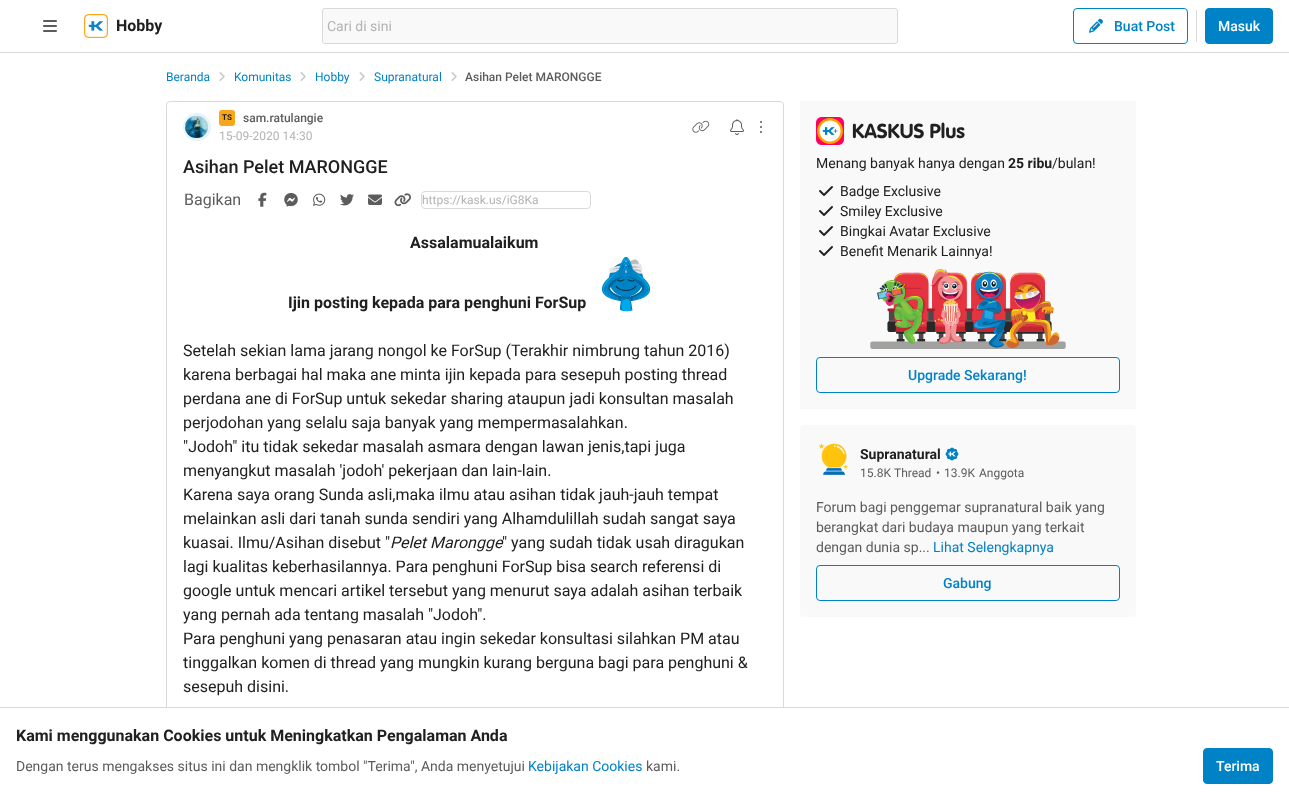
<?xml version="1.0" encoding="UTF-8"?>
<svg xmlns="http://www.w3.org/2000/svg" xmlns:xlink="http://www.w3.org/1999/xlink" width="1289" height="800">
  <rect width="100%" height="100%" fill="#ffffff" />
  <rect y="52" width="1289" height="1" fill="#d9d9d9" />
  <image x="43" y="20" width="14" height="12" xlink:href="image1.png" />
  <image x="84" y="14" width="24" height="24" xlink:href="image2.png" />
  <rect x="322.5" y="8.5" width="575" height="35" rx="2.5" fill="#f9f9f9" stroke="#d9d9d9" />
  <rect x="1073.5" y="8.5" width="114" height="35" rx="3.5" fill="none" stroke="#0082c6" />
  <image x="1089" y="18" width="14" height="15" xlink:href="image3.png" />
  <rect x="1196" y="10" width="1" height="32" fill="#d9d9d9" />
  <rect x="1205.5" y="8.5" width="67" height="35" rx="3.5" fill="#0082c6" stroke="#0082c6" />
  <image x="219" y="72" width="6" height="9" xlink:href="image4.png" />
  <image x="300" y="72" width="6" height="9" xlink:href="image4.png" />
  <image x="359" y="72" width="6" height="9" xlink:href="image4.png" />
  <image x="451" y="72" width="6" height="9" xlink:href="image4.png" />
  <rect x="166.5" y="101.5" width="617" height="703" rx="3.5" fill="none" stroke="#d9d9d9" />
  <image x="185" y="116" width="23" height="22" xlink:href="image6.png" />
  <image x="183" y="113" width="28" height="28" xlink:href="image5.png" />
  <rect x="219" y="110" width="16" height="16" rx="3" fill="#faa61a" />
  <image x="692" y="120" width="18" height="13" xlink:href="image7.png" />
  <image x="730" y="119" width="14" height="16" xlink:href="image8.png" />
  <image x="760" y="121" width="2" height="12" xlink:href="image9.png" />
  <image x="258" y="192" width="9" height="15" xlink:href="image10.png" />
  <image x="284" y="193" width="14" height="14" xlink:href="image11.png" />
  <image x="313" y="193" width="13" height="13" xlink:href="image12.png" />
  <image x="340" y="194" width="14" height="12" xlink:href="image13.png" />
  <image x="368" y="194" width="14" height="11" xlink:href="image14.png" />
  <image x="394" y="193" width="17" height="14" xlink:href="image15.png" />
  <rect x="421.5" y="191.5" width="169" height="17" rx="3.5" fill="none" stroke="#d9d9d9" />
  <image x="601" y="256" width="50" height="56" xlink:href="image16.png" />
  <rect x="800" y="101" width="336" height="308" fill="#f9f9f9" />
  <image x="816" y="117" width="28" height="28" xlink:href="image17.png" />
  <image x="819" y="186" width="14" height="10" xlink:href="image18.png" />
  <image x="819" y="206" width="14" height="10" xlink:href="image18.png" />
  <image x="819" y="226" width="14" height="10" xlink:href="image18.png" />
  <image x="819" y="246" width="14" height="10" xlink:href="image18.png" />
  <image x="870" y="269" width="196" height="80" xlink:href="image19.png" />
  <rect x="816.5" y="357.5" width="303" height="35" rx="3.5" fill="none" stroke="#0082c6" />
  <rect x="800" y="425" width="336" height="192" rx="4" fill="#f9f9f9" />
  <image x="818" y="443" width="30" height="32" xlink:href="image20.png" />
  <image x="945" y="447" width="14" height="14" xlink:href="image21.png" />
  <rect x="816.5" y="565.5" width="303" height="35" rx="3.5" fill="none" stroke="#0082c6" />
  <rect x="166" y="708" width="618" height="92" fill="#ffffff" />
  <rect y="707" width="1289" height="1" fill="#d9d9d9" />
  <rect x="1203.5" y="748.5" width="69" height="35" rx="3.5" fill="#0082c6" stroke="#0082c6" />
  <text x="116" y="31" style="font-family: Roboto; font-size: 16px; font-weight: bold; fill: #202020">Hobby</text>
  <text x="327" y="31" style="font-family: Roboto; font-size: 14px; fill: #b3b3b3">Cari di sini</text>
  <text x="1114" y="31" style="font-family: Roboto; font-size: 14px; font-weight: 500; fill: #0082c6">Buat Post</text>
  <text x="1218" y="31" style="font-family: Roboto; font-size: 14px; font-weight: 500; fill: #ffffff">Masuk</text>
  <text x="166" y="81" style="font-family: Roboto; font-size: 12px; fill: #0082c6">Beranda</text>
  <text x="234" y="81" style="font-family: Roboto; font-size: 12px; fill: #0082c6">Komunitas</text>
  <text x="315" y="81" style="font-family: Roboto; font-size: 12px; fill: #0082c6">Hobby</text>
  <text x="374" y="81" style="font-family: Roboto; font-size: 12px; fill: #0082c6">Supranatural</text>
  <text x="465" y="81" style="font-family: Roboto; font-size: 12px; font-weight: 500; fill: #5c5c5c">Asihan Pelet MARONGGE</text>
  <text x="222" y="120" style="font-family: Roboto; font-size: 8px; font-weight: bold; fill: #202020">TS</text>
  <text x="243" y="122" style="font-family: Roboto; font-size: 12px; font-weight: 500; fill: #5c5c5c">sam.ratulangie</text>
  <text x="219" y="140" style="font-family: Roboto; font-size: 12px; fill: #b3b3b3">15-09-2020 14:30</text>
  <text x="183" y="173" style="font-family: Roboto; font-size: 18px; font-weight: 500; fill: #202020">Asihan Pelet MARONGGE</text>
  <text x="184" y="205" style="font-family: Roboto; font-size: 16px; fill: #5c5c5c">Bagikan</text>
  <text x="422" y="204" style="font-family: Roboto; font-size: 12px; fill: #b3b3b3">https://kask.us/iG8Ka</text>
  <text x="410" y="248" style="font-family: Roboto; font-size: 16px; font-weight: bold; fill: #202020">Assalamualaikum</text>
  <text x="288" y="308" style="font-family: Roboto; font-size: 16px; font-weight: bold; fill: #202020">Ijin posting kepada para penghuni ForSup</text>
  <text x="183" y="356" style="font-family: Roboto; font-size: 16px; fill: #202020">Setelah sekian lama jarang nongol ke ForSup (Terakhir nimbrung tahun 2016)</text>
  <text x="183" y="380" style="font-family: Roboto; font-size: 16px; fill: #202020">karena berbagai hal maka ane minta ijin kepada para sesepuh posting thread</text>
  <text x="183" y="404" style="font-family: Roboto; font-size: 16px; fill: #202020">perdana ane di ForSup untuk sekedar sharing ataupun jadi konsultan masalah</text>
  <text x="183" y="428" style="font-family: Roboto; font-size: 16px; fill: #202020">perjodohan yang selalu saja banyak yang mempermasalahkan.</text>
  <text x="183" y="452" style="font-family: Roboto; font-size: 16px; fill: #202020">"Jodoh" itu tidak sekedar masalah asmara dengan lawan jenis,tapi juga</text>
  <text x="183" y="476" style="font-family: Roboto; font-size: 16px; fill: #202020">menyangkut masalah 'jodoh' pekerjaan dan lain-lain.</text>
  <text x="183" y="500" style="font-family: Roboto; font-size: 16px; fill: #202020">Karena saya orang Sunda asli,maka ilmu atau asihan tidak jauh-jauh tempat</text>
  <text x="183" y="524" style="font-family: Roboto; font-size: 16px; fill: #202020">melainkan asli dari tanah sunda sendiri yang Alhamdulillah sudah sangat saya</text>
  <text x="183" y="548" style="font-family: Roboto; font-size: 16px; fill: #202020">kuasai. Ilmu/Asihan disebut "</text>
  <text x="390" y="548" style="font-family: Roboto; font-size: 16px; font-style: italic; fill: #202020">Pelet Marongge</text>
  <text x="502" y="548" style="font-family: Roboto; font-size: 16px; fill: #202020">" yang sudah tidak usah diragukan</text>
  <text x="183" y="572" style="font-family: Roboto; font-size: 16px; fill: #202020">lagi kualitas keberhasilannya. Para penghuni ForSup bisa search referensi di</text>
  <text x="183" y="596" style="font-family: Roboto; font-size: 16px; fill: #202020">google untuk mencari artikel tersebut yang menurut saya adalah asihan terbaik</text>
  <text x="183" y="620" style="font-family: Roboto; font-size: 16px; fill: #202020">yang pernah ada tentang masalah "Jodoh".</text>
  <text x="183" y="644" style="font-family: Roboto; font-size: 16px; fill: #202020">Para penghuni yang penasaran atau ingin sekedar konsultasi silahkan PM atau</text>
  <text x="183" y="668" style="font-family: Roboto; font-size: 16px; fill: #202020">tinggalkan komen di thread yang mungkin kurang berguna bagi para penghuni &amp;</text>
  <text x="183" y="692" style="font-family: Roboto; font-size: 16px; fill: #202020">sesepuh disini.</text>
  <text x="852" y="138" style="font-family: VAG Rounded; font-size: 20px; font-weight: bold; fill: #202020">KASKUS Plus</text>
  <text x="816" y="168" style="font-family: Roboto; font-size: 14px; fill: #202020">Menang banyak hanya dengan</text>
  <text x="1008" y="168" style="font-family: Roboto; font-size: 14px; font-weight: bold; fill: #202020">25 ribu</text>
  <text x="1052" y="168" style="font-family: Roboto; font-size: 14px; fill: #202020">/bulan!</text>
  <text x="840" y="196" style="font-family: Roboto; font-size: 14px; fill: #202020">Badge Exclusive</text>
  <text x="840" y="216" style="font-family: Roboto; font-size: 14px; fill: #202020">Smiley Exclusive</text>
  <text x="840" y="236" style="font-family: Roboto; font-size: 14px; fill: #202020">Bingkai Avatar Exclusive</text>
  <text x="840" y="256" style="font-family: Roboto; font-size: 14px; fill: #202020">Benefit Menarik Lainnya!</text>
  <text x="908" y="380" style="font-family: Roboto; font-size: 14px; font-weight: 500; fill: #0082c6">Upgrade Sekarang!</text>
  <text x="860" y="459" style="font-family: Roboto; font-size: 14px; font-weight: bold; fill: #202020">Supranatural</text>
  <text x="860" y="477" style="font-family: Roboto; font-size: 12px; fill: #5c5c5c">15.8K</text>
  <text x="894" y="477" style="font-family: Roboto; font-size: 12px; fill: #5c5c5c">Thread</text>
  <text x="936" y="477" style="font-family: Roboto; font-size: 12px; fill: #5c5c5c">•</text>
  <text x="944" y="477" style="font-family: Roboto; font-size: 12px; fill: #5c5c5c">13.9K</text>
  <text x="979" y="477" style="font-family: Roboto; font-size: 12px; fill: #5c5c5c">Anggota</text>
  <text x="816" y="512" style="font-family: Roboto; font-size: 14px; fill: #5c5c5c">Forum bagi penggemar supranatural baik yang</text>
  <text x="816" y="532" style="font-family: Roboto; font-size: 14px; fill: #5c5c5c">berangkat dari budaya maupun yang terkait</text>
  <text x="816" y="552" style="font-family: Roboto; font-size: 14px; fill: #5c5c5c">dengan dunia sp...</text>
  <text x="933" y="552" style="font-family: Roboto; font-size: 14px; fill: #0082c6">Lihat Selengkapnya</text>
  <text x="943" y="588" style="font-family: Roboto; font-size: 14px; font-weight: 500; fill: #0082c6">Gabung</text>
  <text x="16" y="741" style="font-family: Roboto; font-size: 16px; font-weight: bold; fill: #202020">Kami menggunakan Cookies untuk Meningkatkan Pengalaman Anda</text>
  <text x="16" y="771" style="font-family: Roboto; font-size: 14px; fill: #5c5c5c">Dengan terus mengakses situs ini dan mengklik tombol "Terima", Anda menyetujui</text>
  <text x="528" y="771" style="font-family: Roboto; font-size: 14px; fill: #0082c6">Kebijakan Cookies</text>
  <text x="646" y="771" style="font-family: Roboto; font-size: 14px; fill: #5c5c5c">kami.</text>
  <text x="1216" y="771" style="font-family: Roboto; font-size: 14px; font-weight: 500; fill: #ffffff">Terima</text>
</svg>
